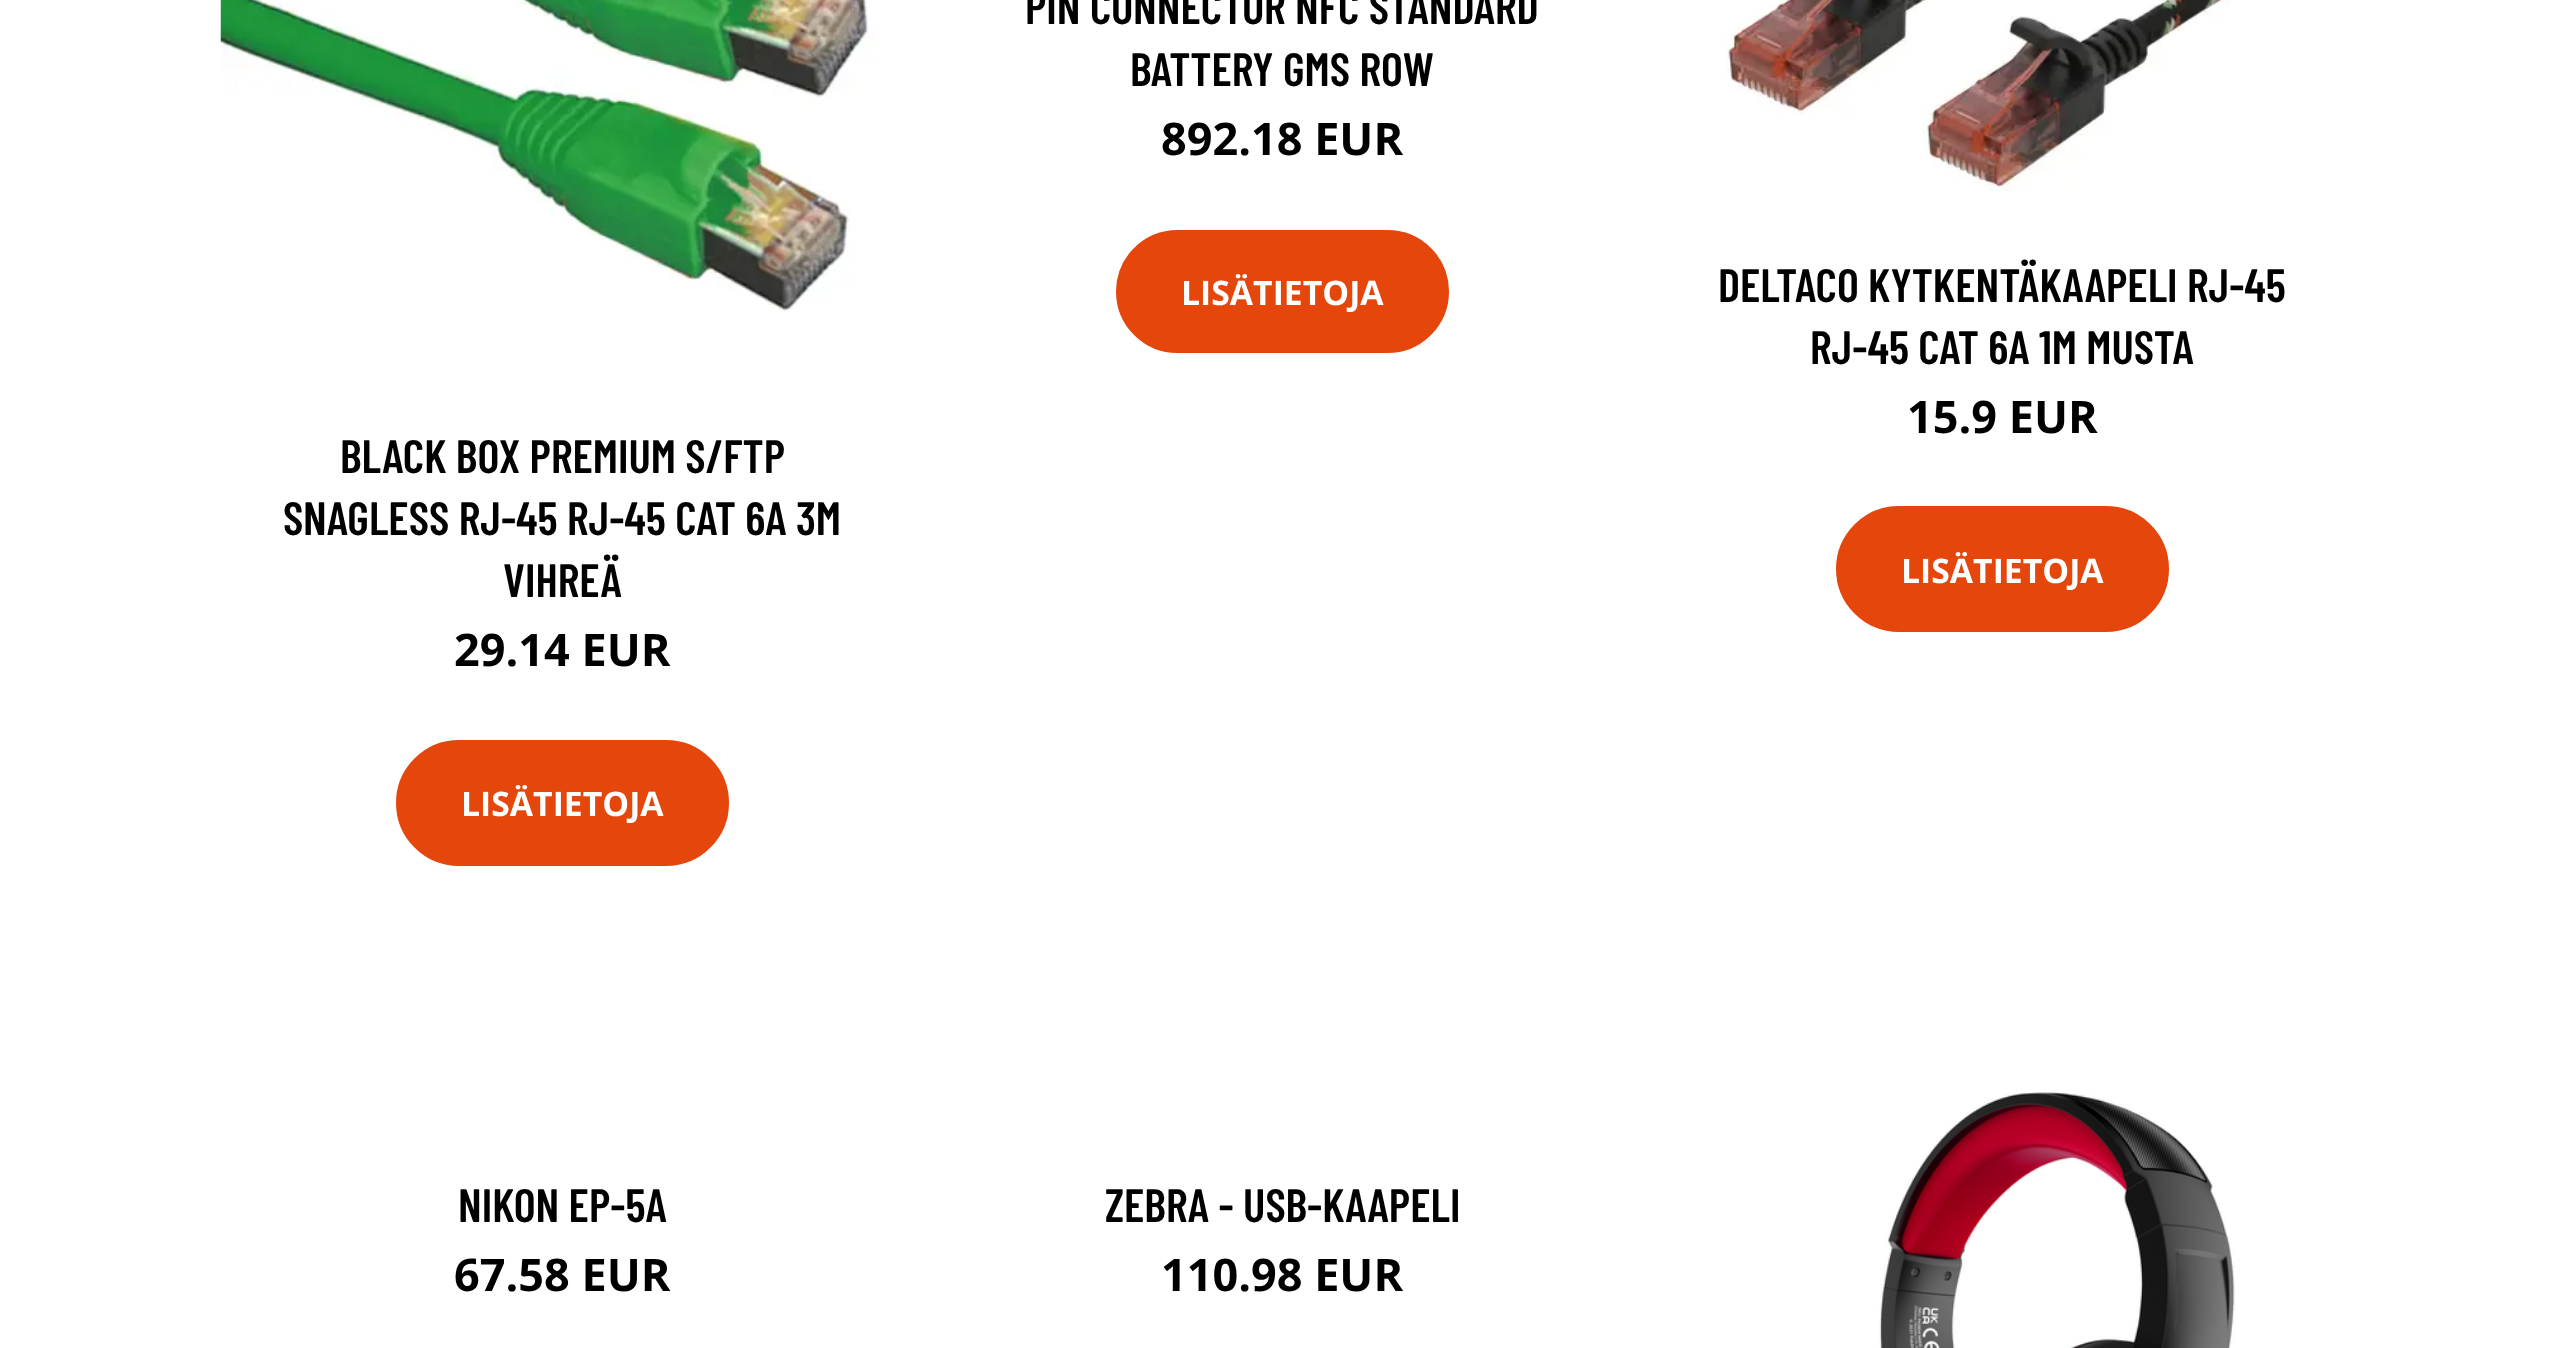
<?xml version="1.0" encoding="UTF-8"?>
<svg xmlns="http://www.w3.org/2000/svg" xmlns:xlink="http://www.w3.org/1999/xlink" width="2563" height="1348">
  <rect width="100%" height="100%" fill="#ffffff" />
  <rect x="1117" y="231" width="331" height="121" rx="60.5" fill="#e4460c" stroke="#e4460c" stroke-width="2" />
  <image x="220" y="0" width="657" height="312" xlink:href="image1.png" />
  <rect x="397" y="741" width="331" height="124" rx="62" fill="#e4460c" stroke="#e4460c" stroke-width="2" />
  <image x="1726" y="0" width="504" height="192" xlink:href="image2.png" />
  <rect x="1837" y="507" width="331" height="124" rx="62" fill="#e4460c" stroke="#e4460c" stroke-width="2" />
  <image x="1879" y="1092" width="356" height="256" xlink:href="image3.png" />
  <text x="1025" y="24" style="font-family: Barlow Condensed; font-size: 46.75px; font-weight: 600; fill: #000000">PIN CONNECTOR NFC STANDARD</text>
  <text x="1130" y="86" style="font-family: Barlow Condensed; font-size: 46.75px; font-weight: 600; fill: #000000">BATTERY GMS ROW</text>
  <text x="1161" y="155" style="font-family: Open Sans; font-size: 45px; font-weight: bold; fill: #000000">892.18 EUR</text>
  <text x="1181" y="305" style="font-family: Open Sans; font-size: 33.75px; font-weight: bold; fill: #ffffff">LISÄTIETOJA</text>
  <text x="340" y="473" style="font-family: Barlow Condensed; font-size: 46.75px; font-weight: 600; fill: #000000">BLACK BOX PREMIUM S/FTP</text>
  <text x="283" y="535" style="font-family: Barlow Condensed; font-size: 46.75px; font-weight: 600; fill: #000000">SNAGLESS RJ-45 RJ-45 CAT 6A 3M</text>
  <text x="503" y="597" style="font-family: Barlow Condensed; font-size: 46.75px; font-weight: 600; fill: #000000">VIHREÄ</text>
  <text x="454" y="666" style="font-family: Open Sans; font-size: 45px; font-weight: bold; fill: #000000">29.14 EUR</text>
  <text x="461" y="816" style="font-family: Open Sans; font-size: 33.75px; font-weight: bold; fill: #ffffff">LISÄTIETOJA</text>
  <text x="1718" y="302" style="font-family: Barlow Condensed; font-size: 46.75px; font-weight: 600; fill: #000000">DELTACO KYTKENTÄKAAPELI RJ-45</text>
  <text x="1810" y="364" style="font-family: Barlow Condensed; font-size: 46.75px; font-weight: 600; fill: #000000">RJ-45 CAT 6A 1M MUSTA</text>
  <text x="1907" y="433" style="font-family: Open Sans; font-size: 45px; font-weight: bold; fill: #000000">15.9 EUR</text>
  <text x="1901" y="583" style="font-family: Open Sans; font-size: 33.75px; font-weight: bold; fill: #ffffff">LISÄTIETOJA</text>
  <text x="458" y="1222" style="font-family: Barlow Condensed; font-size: 46.75px; font-weight: 600; fill: #000000">NIKON EP-5A</text>
  <text x="454" y="1291" style="font-family: Open Sans; font-size: 45px; font-weight: bold; fill: #000000">67.58 EUR</text>
  <text x="1105" y="1222" style="font-family: Barlow Condensed; font-size: 46.75px; font-weight: 600; fill: #000000">ZEBRA - USB-KAAPELI</text>
  <text x="1161" y="1291" style="font-family: Open Sans; font-size: 45px; font-weight: bold; fill: #000000">110.98 EUR</text>
</svg>
